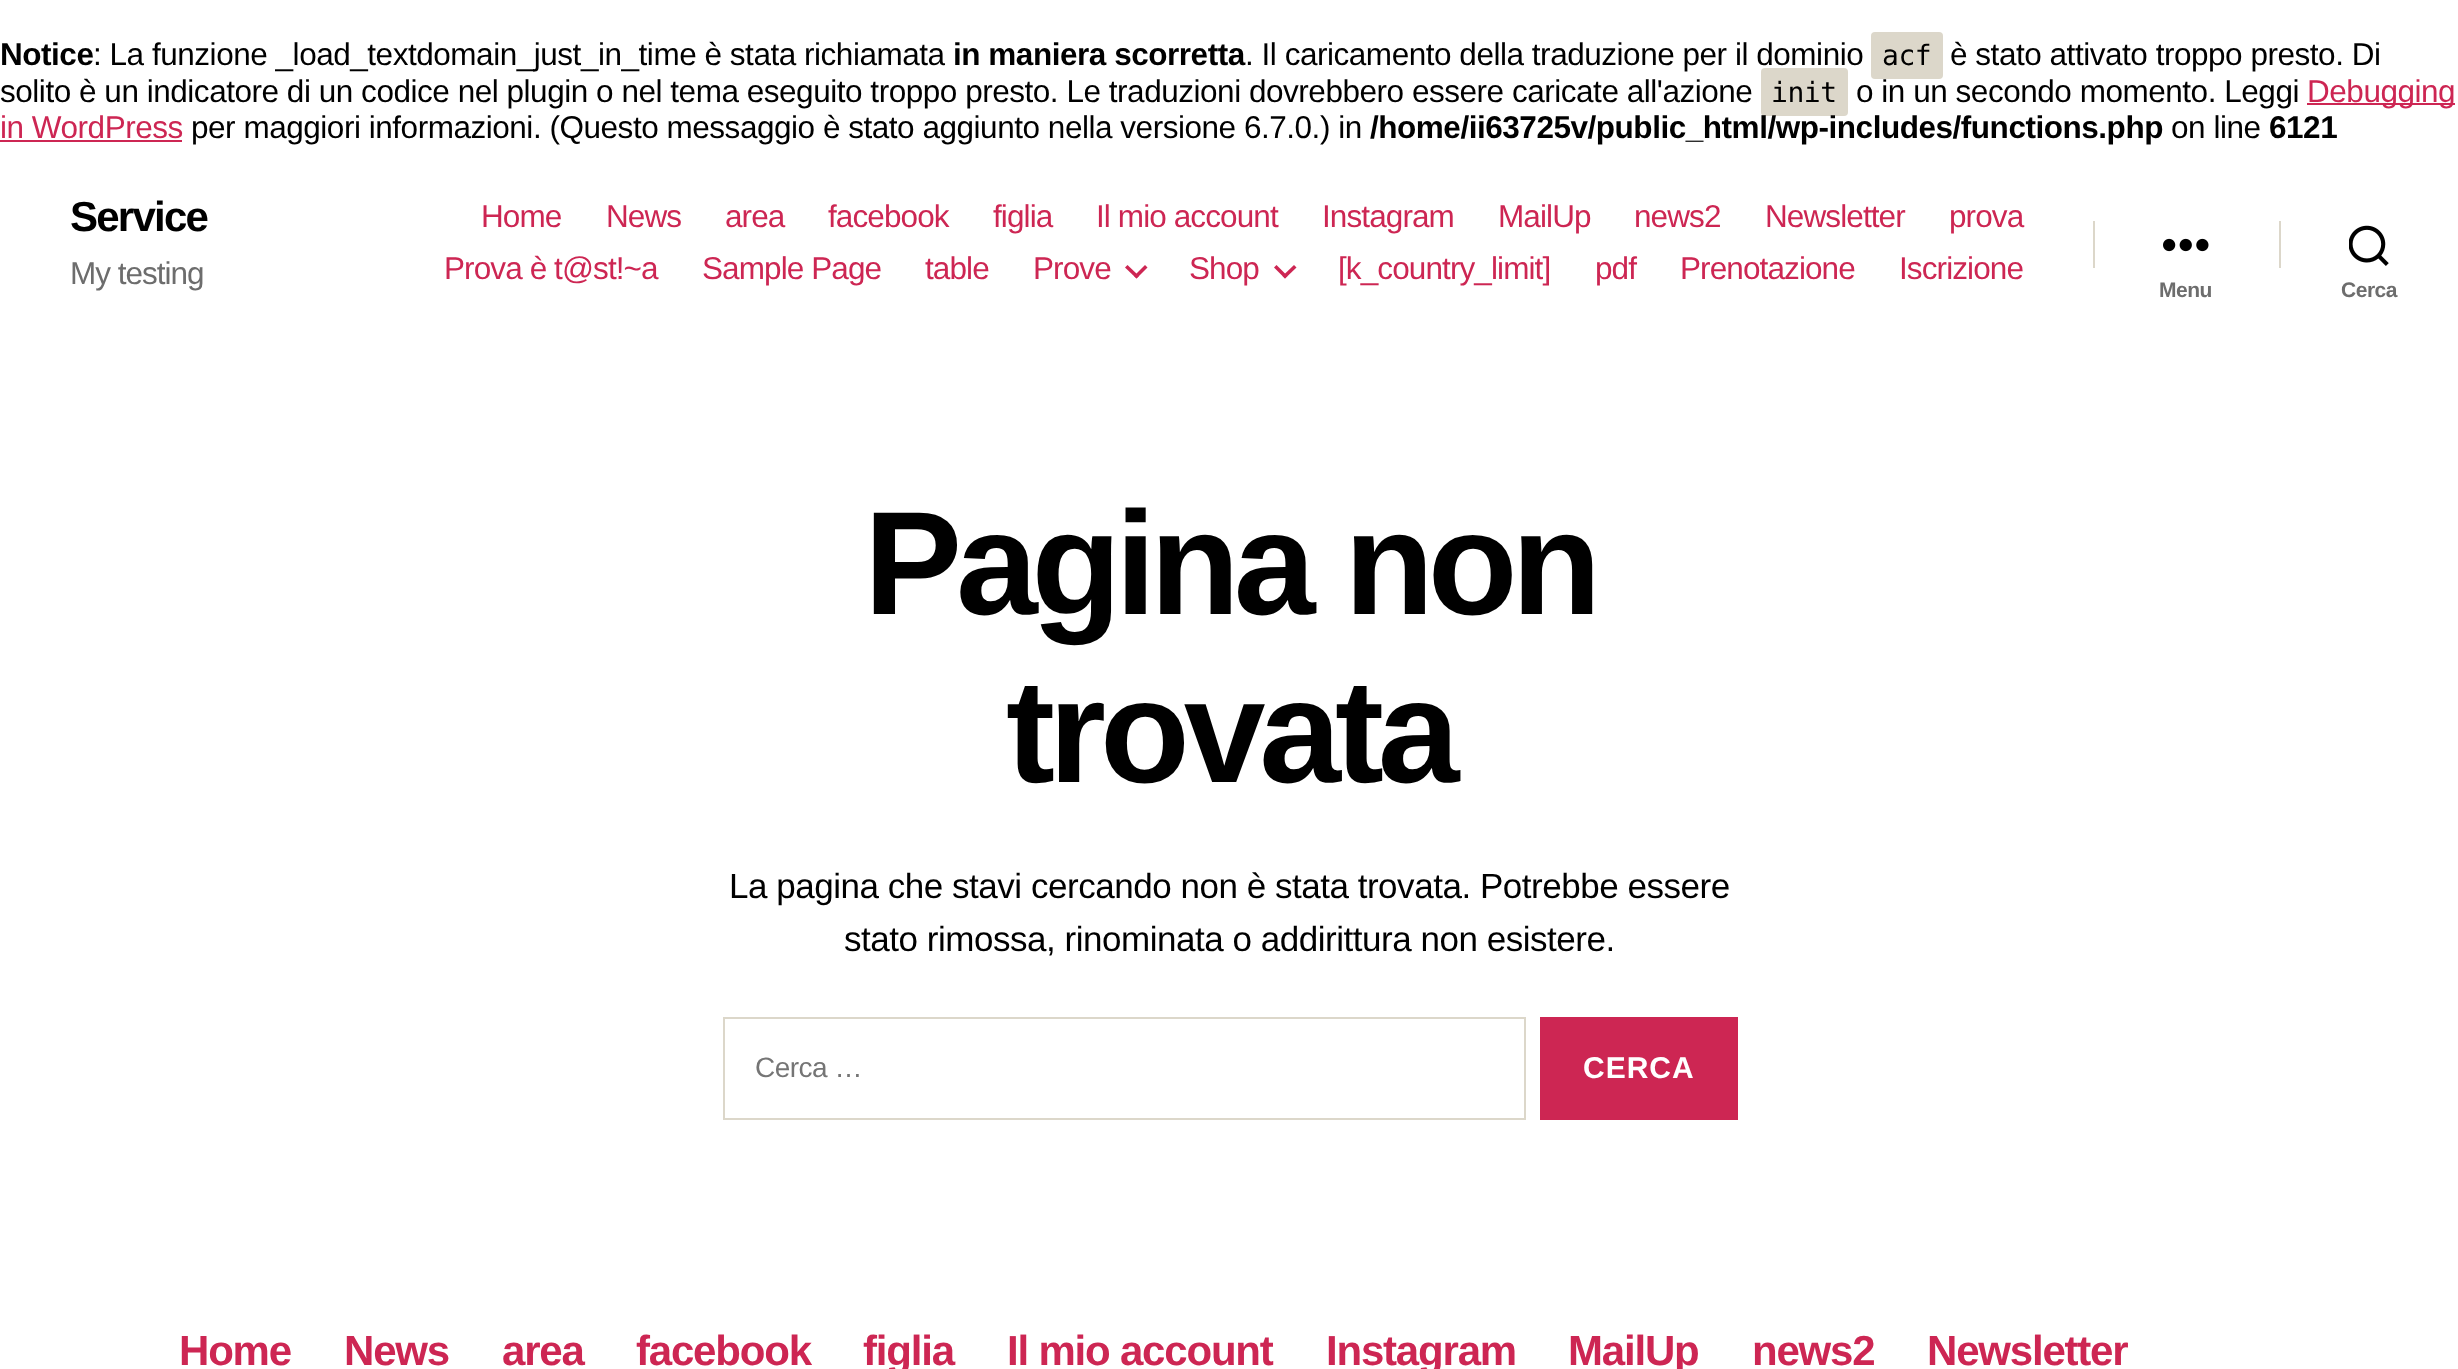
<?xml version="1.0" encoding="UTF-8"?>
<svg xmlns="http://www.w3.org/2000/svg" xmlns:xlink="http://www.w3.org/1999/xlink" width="2458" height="1369">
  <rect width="100%" height="100%" fill="#ffffff" />
  <rect x="1871" y="32" width="72" height="47" rx="4" fill="#dcd7ca" />
  <rect x="2307" y="103" width="148" height="2" fill="#cd2653" />
  <rect y="140" width="182" height="2" fill="#cd2653" />
  <path d="M 1125 267.5 l 2.5 -2.5 l 11.5 11 l -2.5 2.5 z" fill="#cd2653" />
  <path d="M 1134 276 l 11 -11 l 2.5 2.5 l -11 11 z" fill="#cd2653" />
  <path d="M 1274 267.5 l 2.5 -2.5 l 11 11 l -2.5 2.5 z" fill="#cd2653" />
  <path d="M 1282.5 276 l 11.5 -11 l 2.5 2.5 l -11.5 11 z" fill="#cd2653" />
  <rect x="2093" y="221" width="2" height="47" fill="#dcd7ca" />
  <image x="2163" y="238" width="46" height="14" xlink:href="image1.png" />
  <rect x="2279" y="221" width="2" height="47" fill="#dcd7ca" />
  <image x="2349" y="225" width="40" height="41" xlink:href="image2.png" />
  <rect x="724" y="1018" width="801" height="101" fill="none" stroke="#dcd7ca" stroke-width="2" />
  <rect x="1540" y="1017" width="198" height="103" fill="#cd2653" />
  <text x="0" y="65" style="font-family: Liberation Sans; font-size: 31.5px; font-weight: bold; letter-spacing: -0.47px; fill: #000000">Notice</text>
  <text x="93" y="65" style="font-family: Liberation Sans; font-size: 31.5px; letter-spacing: -0.47px; fill: #000000">: La funzione _load_textdomain_just_in_time è stata richiamata</text>
  <text x="953" y="65" style="font-family: Liberation Sans; font-size: 31.5px; font-weight: bold; letter-spacing: -0.47px; fill: #000000">in maniera scorretta</text>
  <text x="1245" y="65" style="font-family: Liberation Sans; font-size: 31.5px; letter-spacing: -0.47px; fill: #000000">. Il caricamento della traduzione per il dominio</text>
  <text x="1882" y="65" style="font-family: DejaVu Sans Mono; font-size: 28px; letter-spacing: -0.47px; fill: #000000">acf</text>
  <text x="1950" y="65" style="font-family: Liberation Sans; font-size: 31.5px; letter-spacing: -0.47px; fill: #000000">è stato attivato troppo presto. Di</text>
  <text x="0" y="102" style="font-family: Liberation Sans; font-size: 31.5px; letter-spacing: -0.47px; fill: #000000">solito è un indicatore di un codice nel plugin o nel tema eseguito troppo presto. Le traduzioni dovrebbero essere caricate all'azione</text>
  <rect x="1761" y="68" width="87" height="48" rx="4" fill="#dcd7ca" />
  <text x="1771" y="102" style="font-family: DejaVu Sans Mono; font-size: 28px; letter-spacing: -0.47px; fill: #000000">init</text>
  <text x="1856" y="102" style="font-family: Liberation Sans; font-size: 31.5px; letter-spacing: -0.47px; fill: #000000">o in un secondo momento. Leggi</text>
  <text x="2307" y="102" style="font-family: Liberation Sans; font-size: 31.5px; letter-spacing: -0.47px; fill: #cd2653">Debugging</text>
  <text x="0" y="138" style="font-family: Liberation Sans; font-size: 31.5px; letter-spacing: -0.47px; fill: #cd2653">in WordPress</text>
  <text x="191" y="138" style="font-family: Liberation Sans; font-size: 31.5px; letter-spacing: -0.47px; fill: #000000">per maggiori informazioni. (Questo messaggio è stato aggiunto nella versione 6.7.0.) in</text>
  <text x="1370" y="138" style="font-family: Liberation Sans; font-size: 31.5px; font-weight: bold; letter-spacing: -0.47px; fill: #000000">/home/ii63725v/public_html/wp-includes/functions.php</text>
  <text x="2171" y="138" style="font-family: Liberation Sans; font-size: 31.5px; letter-spacing: -0.47px; fill: #000000">on line</text>
  <text x="2269" y="138" style="font-family: Liberation Sans; font-size: 31.5px; font-weight: bold; letter-spacing: -0.47px; fill: #000000">6121</text>
  <text x="70" y="231" style="font-family: Liberation Sans; font-size: 42px; font-weight: bold; letter-spacing: -1.75px; fill: #000000">Service</text>
  <text x="70" y="284" style="font-family: Liberation Sans; font-size: 31.5px; letter-spacing: -1px; fill: #6d6d6d">My testing</text>
  <text x="481" y="227" style="font-family: Liberation Sans; font-size: 31.5px; letter-spacing: -0.9px; fill: #cd2653">Home</text>
  <text x="606" y="227" style="font-family: Liberation Sans; font-size: 31.5px; letter-spacing: -0.9px; fill: #cd2653">News</text>
  <text x="725" y="227" style="font-family: Liberation Sans; font-size: 31.5px; letter-spacing: -0.9px; fill: #cd2653">area</text>
  <text x="828" y="227" style="font-family: Liberation Sans; font-size: 31.5px; letter-spacing: -0.9px; fill: #cd2653">facebook</text>
  <text x="993" y="227" style="font-family: Liberation Sans; font-size: 31.5px; letter-spacing: -0.9px; fill: #cd2653">figlia</text>
  <text x="1096" y="227" style="font-family: Liberation Sans; font-size: 31.5px; letter-spacing: -0.9px; fill: #cd2653">Il mio account</text>
  <text x="1322" y="227" style="font-family: Liberation Sans; font-size: 31.5px; letter-spacing: -0.9px; fill: #cd2653">Instagram</text>
  <text x="1498" y="227" style="font-family: Liberation Sans; font-size: 31.5px; letter-spacing: -0.9px; fill: #cd2653">MailUp</text>
  <text x="1634" y="227" style="font-family: Liberation Sans; font-size: 31.5px; letter-spacing: -0.9px; fill: #cd2653">news2</text>
  <text x="1765" y="227" style="font-family: Liberation Sans; font-size: 31.5px; letter-spacing: -0.9px; fill: #cd2653">Newsletter</text>
  <text x="1949" y="227" style="font-family: Liberation Sans; font-size: 31.5px; letter-spacing: -0.9px; fill: #cd2653">prova</text>
  <text x="444" y="279" style="font-family: Liberation Sans; font-size: 31.5px; letter-spacing: -0.9px; fill: #cd2653">Prova è t@st!~a</text>
  <text x="702" y="279" style="font-family: Liberation Sans; font-size: 31.5px; letter-spacing: -0.9px; fill: #cd2653">Sample Page</text>
  <text x="925" y="279" style="font-family: Liberation Sans; font-size: 31.5px; letter-spacing: -0.9px; fill: #cd2653">table</text>
  <text x="1033" y="279" style="font-family: Liberation Sans; font-size: 31.5px; letter-spacing: -0.9px; fill: #cd2653">Prove</text>
  <text x="1189" y="279" style="font-family: Liberation Sans; font-size: 31.5px; letter-spacing: -0.9px; fill: #cd2653">Shop</text>
  <text x="1338" y="279" style="font-family: Liberation Sans; font-size: 31.5px; letter-spacing: -0.9px; fill: #cd2653">[k_country_limit]</text>
  <text x="1595" y="279" style="font-family: Liberation Sans; font-size: 31.5px; letter-spacing: -0.9px; fill: #cd2653">pdf</text>
  <text x="1680" y="279" style="font-family: Liberation Sans; font-size: 31.5px; letter-spacing: -0.9px; fill: #cd2653">Prenotazione</text>
  <text x="1899" y="279" style="font-family: Liberation Sans; font-size: 31.5px; letter-spacing: -0.9px; fill: #cd2653">Iscrizione</text>
  <text x="2159" y="297" style="font-family: Liberation Sans; font-size: 21px; font-weight: bold; letter-spacing: -0.47px; fill: #6d6d6d">Menu</text>
  <text x="2341" y="297" style="font-family: Liberation Sans; font-size: 21px; font-weight: bold; letter-spacing: -0.47px; fill: #6d6d6d">Cerca</text>
  <text x="864" y="614" style="font-family: Liberation Sans; font-size: 147px; font-weight: bold; letter-spacing: -6.1px; fill: #000000">Pagina non</text>
  <text x="1006" y="782" style="font-family: Liberation Sans; font-size: 147px; font-weight: bold; letter-spacing: -6.1px; fill: #000000">trovata</text>
  <text x="729" y="898" style="font-family: Liberation Sans; font-size: 35px; letter-spacing: -0.47px; fill: #000000">La pagina che stavi cercando non è stata trovata. Potrebbe essere</text>
  <text x="844" y="951" style="font-family: Liberation Sans; font-size: 35px; letter-spacing: -0.47px; fill: #000000">stato rimossa, rinominata o addirittura non esistere.</text>
  <text x="755" y="1077" style="font-family: Liberation Sans; font-size: 28px; letter-spacing: -0.5px; fill: #757575">Cerca …</text>
  <text x="1583" y="1078" style="font-family: Liberation Sans; font-size: 30px; font-weight: bold; letter-spacing: 1px; fill: #ffffff">CERCA</text>
  <text x="179" y="1365" style="font-family: Liberation Sans; font-size: 42px; font-weight: bold; letter-spacing: -1.2px; fill: #cd2653">Home</text>
  <text x="344" y="1365" style="font-family: Liberation Sans; font-size: 42px; font-weight: bold; letter-spacing: -1.2px; fill: #cd2653">News</text>
  <text x="502" y="1365" style="font-family: Liberation Sans; font-size: 42px; font-weight: bold; letter-spacing: -1.2px; fill: #cd2653">area</text>
  <text x="636" y="1365" style="font-family: Liberation Sans; font-size: 42px; font-weight: bold; letter-spacing: -1.2px; fill: #cd2653">facebook</text>
  <text x="863" y="1365" style="font-family: Liberation Sans; font-size: 42px; font-weight: bold; letter-spacing: -1.2px; fill: #cd2653">figlia</text>
  <text x="1007" y="1365" style="font-family: Liberation Sans; font-size: 42px; font-weight: bold; letter-spacing: -1.2px; fill: #cd2653">Il mio account</text>
  <text x="1326" y="1365" style="font-family: Liberation Sans; font-size: 42px; font-weight: bold; letter-spacing: -1.2px; fill: #cd2653">Instagram</text>
  <text x="1568" y="1365" style="font-family: Liberation Sans; font-size: 42px; font-weight: bold; letter-spacing: -1.2px; fill: #cd2653">MailUp</text>
  <text x="1752" y="1365" style="font-family: Liberation Sans; font-size: 42px; font-weight: bold; letter-spacing: -1.2px; fill: #cd2653">news2</text>
  <text x="1927" y="1365" style="font-family: Liberation Sans; font-size: 42px; font-weight: bold; letter-spacing: -1.2px; fill: #cd2653">Newsletter</text>
</svg>
